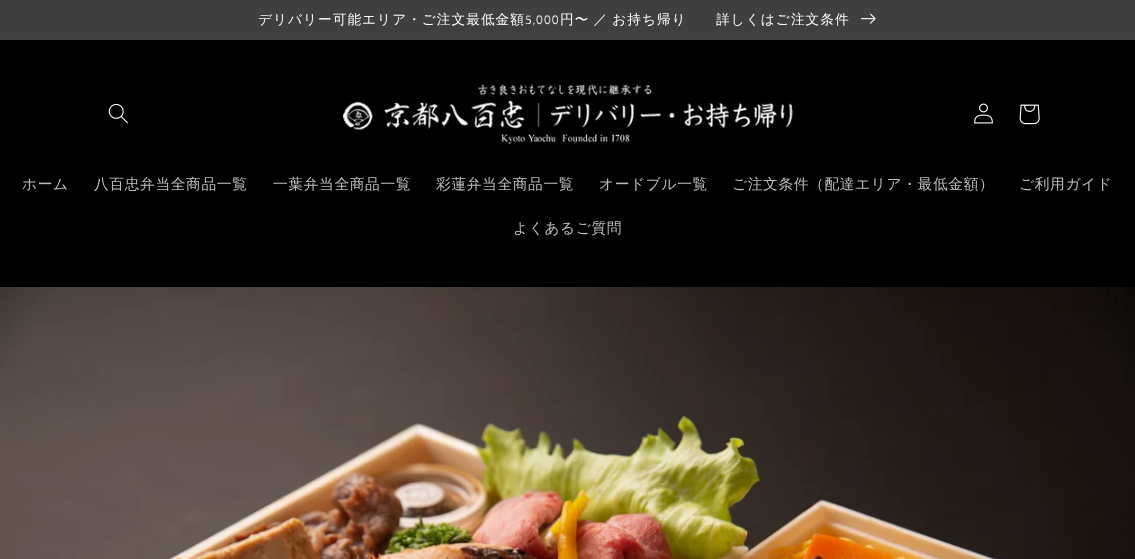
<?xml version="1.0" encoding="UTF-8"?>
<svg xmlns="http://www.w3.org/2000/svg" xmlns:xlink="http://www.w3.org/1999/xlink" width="1135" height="559">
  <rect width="100%" height="100%" fill="#ffffff" />
  <rect y="39" width="1135" height="1" fill="#434343" />
  <rect width="1135" height="39" fill="#3f3f3f" />
  <image x="861" y="13" width="15" height="11" xlink:href="image1.png" />
  <rect y="40" width="1135" height="247" fill="#000000" />
  <image x="108" y="103" width="20" height="21" xlink:href="image2.png" />
  <image x="343" y="84" width="450" height="60" xlink:href="image3.png" />
  <image x="974" y="103" width="19" height="21" xlink:href="image4.png" />
  <image x="1019" y="104" width="21" height="21" xlink:href="image5.png" />
  <image x="0" y="287" width="1135" height="272" xlink:href="image6.png" />
  <text x="258" y="24" style="font-family: WenQuanYi Zen Hei; font-size: 13.65px; font-weight: 500; letter-spacing: 1.05px; fill: #fcfcfc">デリバリー可能エリア・ご注文最低金額</text>
  <text x="525" y="24" style="font-family: Manuale; font-size: 13.65px; font-weight: 300; letter-spacing: 1.05px; fill: #fcfcfc">5,000</text>
  <text x="560" y="24" word-spacing="-1" style="font-family: WenQuanYi Zen Hei; font-size: 13.65px; font-weight: 500; letter-spacing: 1.05px; fill: #fcfcfc">円〜 ／ お持ち帰り　　詳しくはご注文条件</text>
  <text x="22" y="189" style="font-family: WenQuanYi Zen Hei; font-size: 14.75px; font-weight: 500; letter-spacing: 0.6px; fill: #bdbdbd">ホーム</text>
  <text x="94" y="189" style="font-family: WenQuanYi Zen Hei; font-size: 14.75px; font-weight: 500; letter-spacing: 0.6px; fill: #bdbdbd">八百忠弁当全商品一覧</text>
  <text x="273" y="189" style="font-family: WenQuanYi Zen Hei; font-size: 14.75px; font-weight: 500; letter-spacing: 0.6px; fill: #bdbdbd">一葉弁当全商品一覧</text>
  <text x="436" y="189" style="font-family: WenQuanYi Zen Hei; font-size: 14.75px; font-weight: 500; letter-spacing: 0.6px; fill: #bdbdbd">彩蓮弁当全商品一覧</text>
  <text x="599" y="189" style="font-family: WenQuanYi Zen Hei; font-size: 14.75px; font-weight: 500; letter-spacing: 0.6px; fill: #bdbdbd">オードブル一覧</text>
  <text x="732" y="189" style="font-family: WenQuanYi Zen Hei; font-size: 14.75px; font-weight: 500; letter-spacing: 0.6px; fill: #bdbdbd">ご注文条件（配達エリア・最低金額）</text>
  <text x="1019" y="189" style="font-family: WenQuanYi Zen Hei; font-size: 14.75px; font-weight: 500; letter-spacing: 0.6px; fill: #bdbdbd">ご利用ガイド</text>
  <text x="513" y="233" style="font-family: WenQuanYi Zen Hei; font-size: 14.75px; font-weight: 500; letter-spacing: 0.6px; fill: #bdbdbd">よくあるご質問</text>
</svg>
